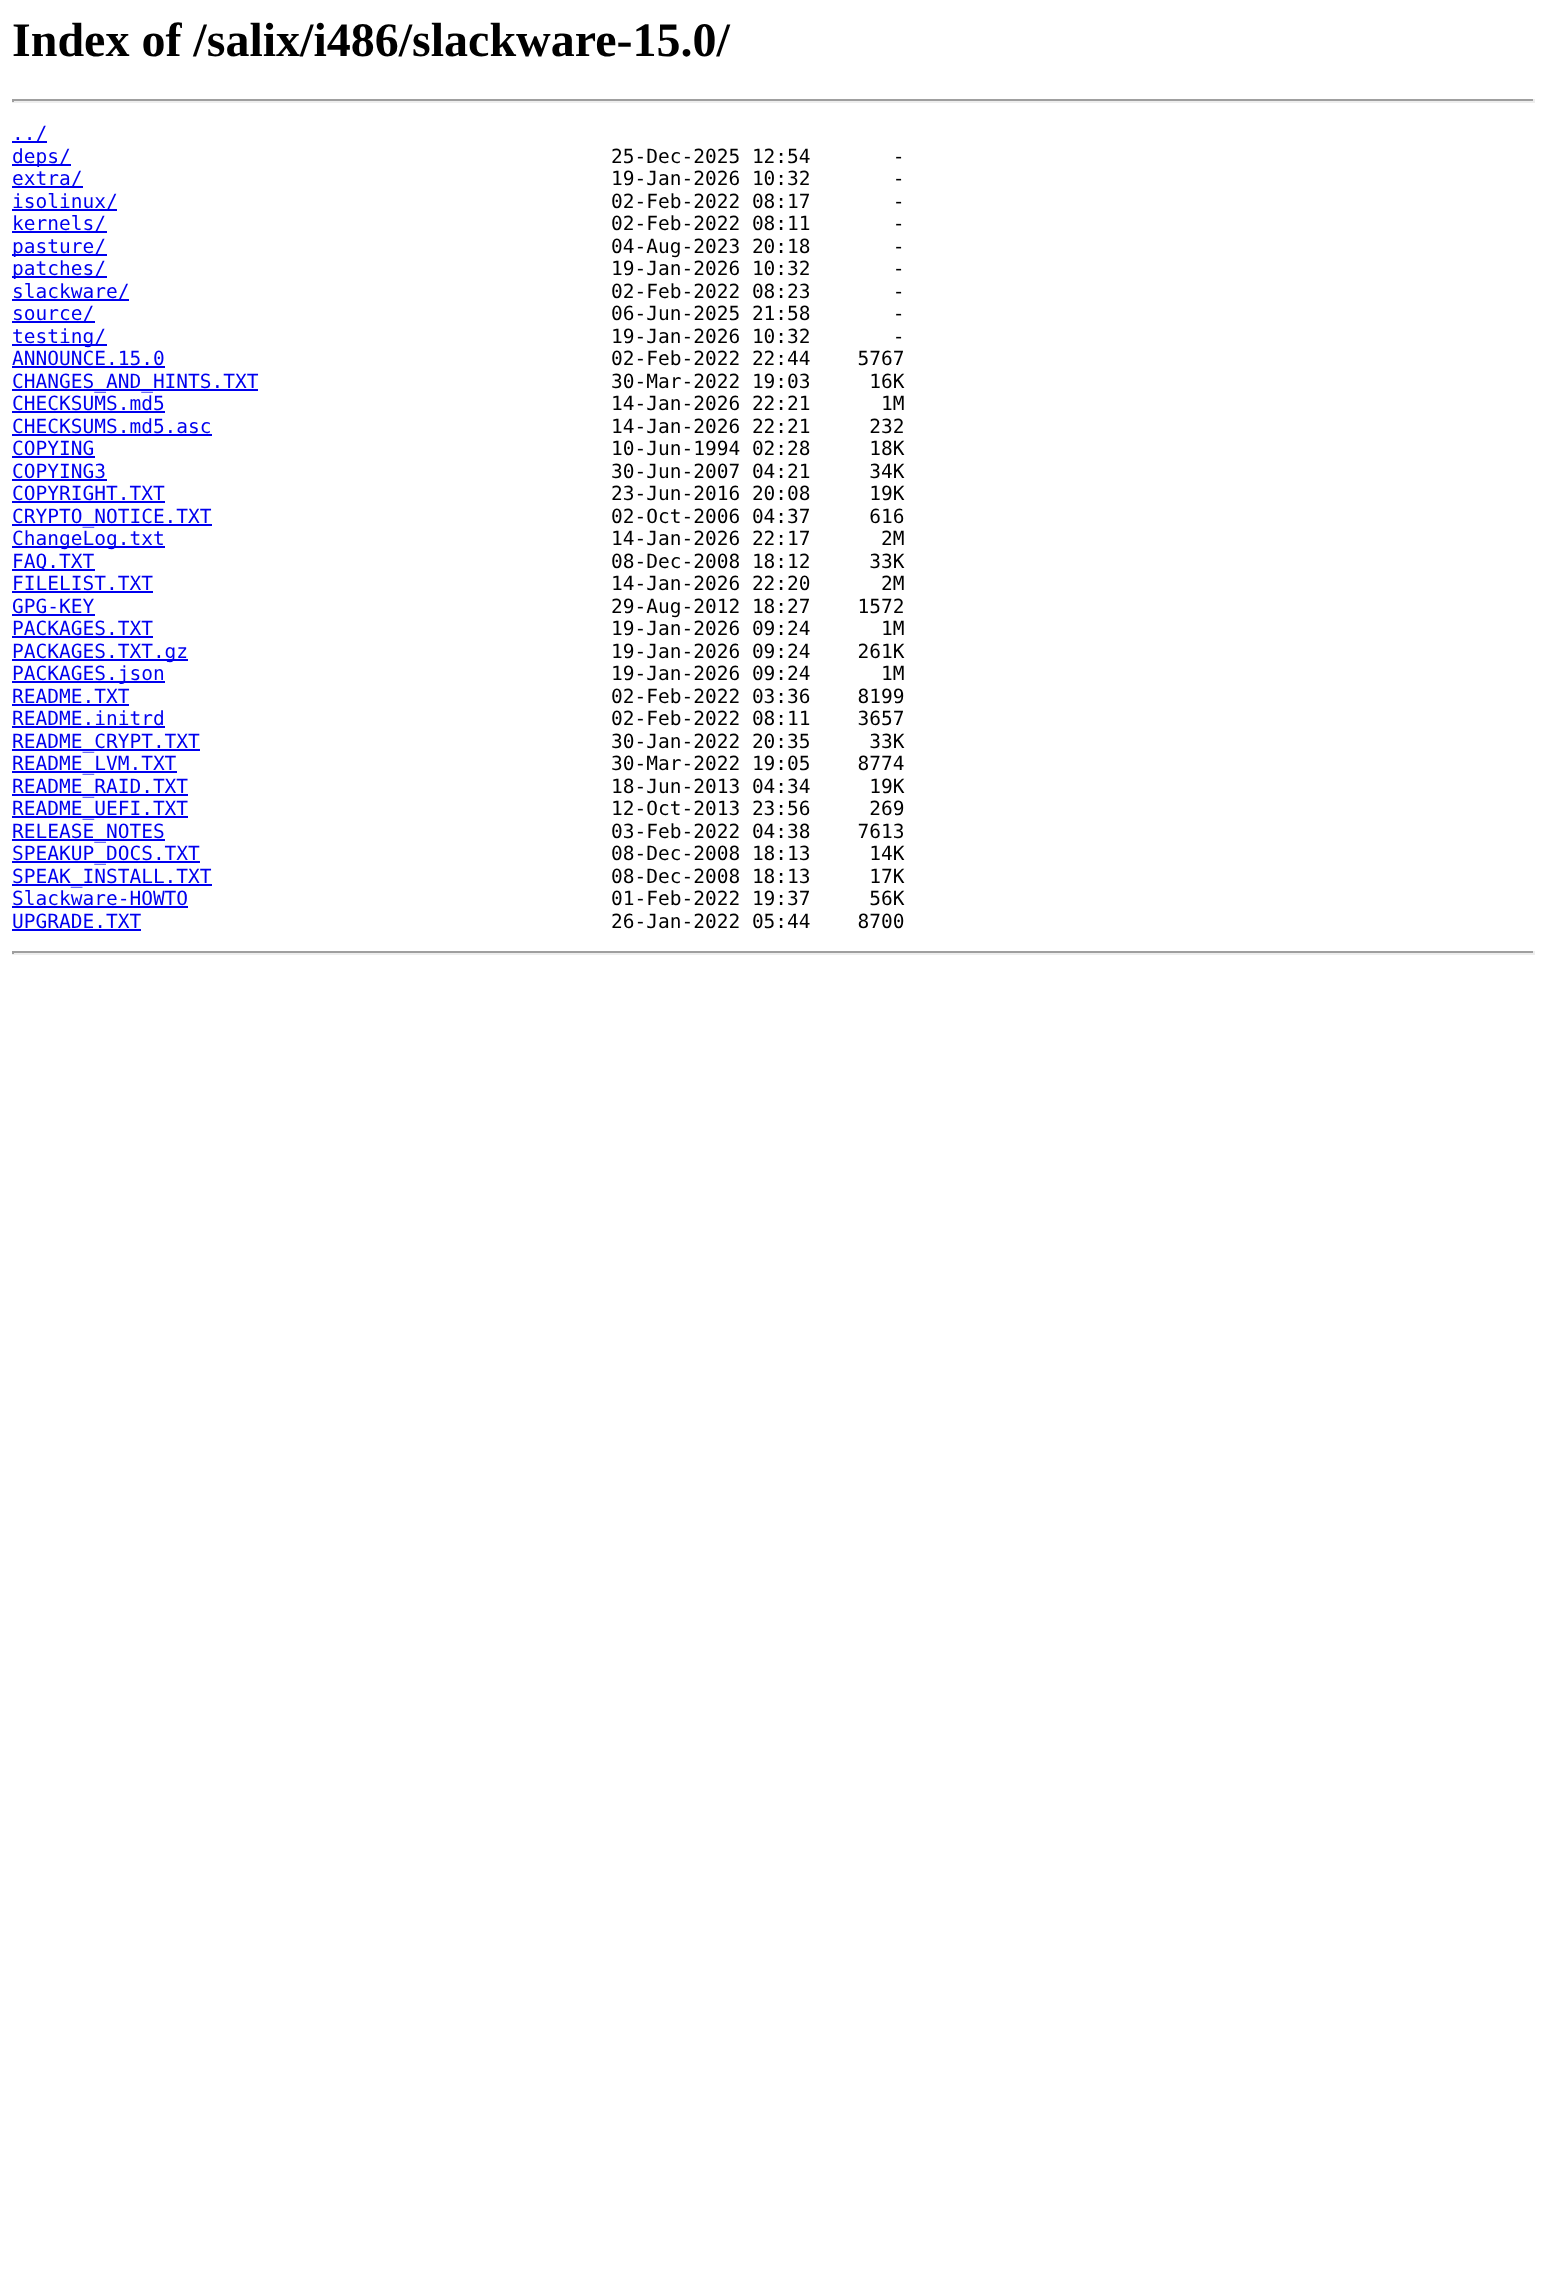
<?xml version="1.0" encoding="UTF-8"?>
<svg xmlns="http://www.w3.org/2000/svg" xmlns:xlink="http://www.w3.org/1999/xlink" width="1546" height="2287">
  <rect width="100%" height="100%" fill="#ffffff" />
  <rect x="12" y="99" width="1523" height="2" fill="#9f9f9f" />
  <rect x="1533" y="99" width="2" height="3" fill="#eeeeee" />
  <rect x="12" y="101" width="1523" height="2" fill="#eeeeee" />
  <rect x="12" y="99" width="2" height="3" fill="#9f9f9f" />
  <rect x="12" y="141" width="35" height="2" fill="#0000ee" />
  <rect x="12" y="164" width="59" height="2" fill="#0000ee" />
  <rect x="12" y="186" width="71" height="2" fill="#0000ee" />
  <rect x="12" y="209" width="105" height="2" fill="#0000ee" />
  <rect x="12" y="231" width="95" height="2" fill="#0000ee" />
  <rect x="12" y="254" width="95" height="2" fill="#0000ee" />
  <rect x="12" y="276" width="95" height="2" fill="#0000ee" />
  <rect x="12" y="299" width="117" height="2" fill="#0000ee" />
  <rect x="12" y="321" width="83" height="2" fill="#0000ee" />
  <rect x="12" y="344" width="95" height="2" fill="#0000ee" />
  <rect x="12" y="366" width="153" height="2" fill="#0000ee" />
  <rect x="12" y="389" width="246" height="2" fill="#0000ee" />
  <rect x="12" y="411" width="153" height="2" fill="#0000ee" />
  <rect x="12" y="434" width="200" height="2" fill="#0000ee" />
  <rect x="12" y="456" width="83" height="2" fill="#0000ee" />
  <rect x="12" y="479" width="95" height="2" fill="#0000ee" />
  <rect x="12" y="501" width="153" height="2" fill="#0000ee" />
  <rect x="12" y="524" width="200" height="2" fill="#0000ee" />
  <rect x="12" y="546" width="153" height="2" fill="#0000ee" />
  <rect x="12" y="569" width="83" height="2" fill="#0000ee" />
  <rect x="12" y="591" width="141" height="2" fill="#0000ee" />
  <rect x="12" y="614" width="83" height="2" fill="#0000ee" />
  <rect x="12" y="636" width="141" height="2" fill="#0000ee" />
  <rect x="12" y="659" width="176" height="2" fill="#0000ee" />
  <rect x="12" y="681" width="153" height="2" fill="#0000ee" />
  <rect x="12" y="704" width="117" height="2" fill="#0000ee" />
  <rect x="12" y="726" width="153" height="2" fill="#0000ee" />
  <rect x="12" y="749" width="188" height="2" fill="#0000ee" />
  <rect x="12" y="771" width="165" height="2" fill="#0000ee" />
  <rect x="12" y="794" width="176" height="2" fill="#0000ee" />
  <rect x="12" y="816" width="176" height="2" fill="#0000ee" />
  <rect x="12" y="839" width="153" height="2" fill="#0000ee" />
  <rect x="12" y="861" width="188" height="2" fill="#0000ee" />
  <rect x="12" y="884" width="200" height="2" fill="#0000ee" />
  <rect x="12" y="906" width="176" height="2" fill="#0000ee" />
  <rect x="12" y="929" width="129" height="2" fill="#0000ee" />
  <rect x="12" y="951" width="1523" height="2" fill="#9f9f9f" />
  <rect x="1533" y="951" width="2" height="3" fill="#eeeeee" />
  <rect x="12" y="953" width="1523" height="2" fill="#eeeeee" />
  <rect x="12" y="951" width="2" height="3" fill="#9f9f9f" />
  <text x="12" y="56" style="font-family: Liberation Serif; font-size: 48px; font-weight: bold; fill: #000000">Index of /salix/i486/slackware-15.0/</text>
  <text x="12" y="140" style="font-family: DejaVu Sans Mono; font-size: 19.5px; fill: #0000ee">../</text>
  <text x="12" y="163" style="font-family: DejaVu Sans Mono; font-size: 19.5px; fill: #0000ee">deps/</text>
  <text x="611" y="163" style="font-family: DejaVu Sans Mono; font-size: 19.5px; fill: #000000" xml:space="preserve">25-Dec-2025 12:54       -</text>
  <text x="12" y="185" style="font-family: DejaVu Sans Mono; font-size: 19.5px; fill: #0000ee">extra/</text>
  <text x="611" y="185" style="font-family: DejaVu Sans Mono; font-size: 19.5px; fill: #000000" xml:space="preserve">19-Jan-2026 10:32       -</text>
  <text x="12" y="208" style="font-family: DejaVu Sans Mono; font-size: 19.5px; fill: #0000ee">isolinux/</text>
  <text x="611" y="208" style="font-family: DejaVu Sans Mono; font-size: 19.5px; fill: #000000" xml:space="preserve">02-Feb-2022 08:17       -</text>
  <text x="12" y="230" style="font-family: DejaVu Sans Mono; font-size: 19.5px; fill: #0000ee">kernels/</text>
  <text x="611" y="230" style="font-family: DejaVu Sans Mono; font-size: 19.5px; fill: #000000" xml:space="preserve">02-Feb-2022 08:11       -</text>
  <text x="12" y="253" style="font-family: DejaVu Sans Mono; font-size: 19.5px; fill: #0000ee">pasture/</text>
  <text x="611" y="253" style="font-family: DejaVu Sans Mono; font-size: 19.5px; fill: #000000" xml:space="preserve">04-Aug-2023 20:18       -</text>
  <text x="12" y="275" style="font-family: DejaVu Sans Mono; font-size: 19.5px; fill: #0000ee">patches/</text>
  <text x="611" y="275" style="font-family: DejaVu Sans Mono; font-size: 19.5px; fill: #000000" xml:space="preserve">19-Jan-2026 10:32       -</text>
  <text x="12" y="298" style="font-family: DejaVu Sans Mono; font-size: 19.5px; fill: #0000ee">slackware/</text>
  <text x="611" y="298" style="font-family: DejaVu Sans Mono; font-size: 19.5px; fill: #000000" xml:space="preserve">02-Feb-2022 08:23       -</text>
  <text x="12" y="320" style="font-family: DejaVu Sans Mono; font-size: 19.5px; fill: #0000ee">source/</text>
  <text x="611" y="320" style="font-family: DejaVu Sans Mono; font-size: 19.5px; fill: #000000" xml:space="preserve">06-Jun-2025 21:58       -</text>
  <text x="12" y="343" style="font-family: DejaVu Sans Mono; font-size: 19.5px; fill: #0000ee">testing/</text>
  <text x="611" y="343" style="font-family: DejaVu Sans Mono; font-size: 19.5px; fill: #000000" xml:space="preserve">19-Jan-2026 10:32       -</text>
  <text x="12" y="365" style="font-family: DejaVu Sans Mono; font-size: 19.5px; fill: #0000ee">ANNOUNCE.15.0</text>
  <text x="611" y="365" style="font-family: DejaVu Sans Mono; font-size: 19.5px; fill: #000000" xml:space="preserve">02-Feb-2022 22:44    5767</text>
  <text x="12" y="388" style="font-family: DejaVu Sans Mono; font-size: 19.5px; fill: #0000ee">CHANGES_AND_HINTS.TXT</text>
  <text x="611" y="388" style="font-family: DejaVu Sans Mono; font-size: 19.5px; fill: #000000" xml:space="preserve">30-Mar-2022 19:03     16K</text>
  <text x="12" y="410" style="font-family: DejaVu Sans Mono; font-size: 19.5px; fill: #0000ee">CHECKSUMS.md5</text>
  <text x="611" y="410" style="font-family: DejaVu Sans Mono; font-size: 19.5px; fill: #000000" xml:space="preserve">14-Jan-2026 22:21      1M</text>
  <text x="12" y="433" style="font-family: DejaVu Sans Mono; font-size: 19.5px; fill: #0000ee">CHECKSUMS.md5.asc</text>
  <text x="611" y="433" style="font-family: DejaVu Sans Mono; font-size: 19.5px; fill: #000000" xml:space="preserve">14-Jan-2026 22:21     232</text>
  <text x="12" y="455" style="font-family: DejaVu Sans Mono; font-size: 19.5px; fill: #0000ee">COPYING</text>
  <text x="611" y="455" style="font-family: DejaVu Sans Mono; font-size: 19.5px; fill: #000000" xml:space="preserve">10-Jun-1994 02:28     18K</text>
  <text x="12" y="478" style="font-family: DejaVu Sans Mono; font-size: 19.5px; fill: #0000ee">COPYING3</text>
  <text x="611" y="478" style="font-family: DejaVu Sans Mono; font-size: 19.5px; fill: #000000" xml:space="preserve">30-Jun-2007 04:21     34K</text>
  <text x="12" y="500" style="font-family: DejaVu Sans Mono; font-size: 19.5px; fill: #0000ee">COPYRIGHT.TXT</text>
  <text x="611" y="500" style="font-family: DejaVu Sans Mono; font-size: 19.5px; fill: #000000" xml:space="preserve">23-Jun-2016 20:08     19K</text>
  <text x="12" y="523" style="font-family: DejaVu Sans Mono; font-size: 19.5px; fill: #0000ee">CRYPTO_NOTICE.TXT</text>
  <text x="611" y="523" style="font-family: DejaVu Sans Mono; font-size: 19.5px; fill: #000000" xml:space="preserve">02-Oct-2006 04:37     616</text>
  <text x="12" y="545" style="font-family: DejaVu Sans Mono; font-size: 19.5px; fill: #0000ee">ChangeLog.txt</text>
  <text x="611" y="545" style="font-family: DejaVu Sans Mono; font-size: 19.5px; fill: #000000" xml:space="preserve">14-Jan-2026 22:17      2M</text>
  <text x="12" y="568" style="font-family: DejaVu Sans Mono; font-size: 19.5px; fill: #0000ee">FAQ.TXT</text>
  <text x="611" y="568" style="font-family: DejaVu Sans Mono; font-size: 19.5px; fill: #000000" xml:space="preserve">08-Dec-2008 18:12     33K</text>
  <text x="12" y="590" style="font-family: DejaVu Sans Mono; font-size: 19.5px; fill: #0000ee">FILELIST.TXT</text>
  <text x="611" y="590" style="font-family: DejaVu Sans Mono; font-size: 19.5px; fill: #000000" xml:space="preserve">14-Jan-2026 22:20      2M</text>
  <text x="12" y="613" style="font-family: DejaVu Sans Mono; font-size: 19.5px; fill: #0000ee">GPG-KEY</text>
  <text x="611" y="613" style="font-family: DejaVu Sans Mono; font-size: 19.5px; fill: #000000" xml:space="preserve">29-Aug-2012 18:27    1572</text>
  <text x="12" y="635" style="font-family: DejaVu Sans Mono; font-size: 19.5px; fill: #0000ee">PACKAGES.TXT</text>
  <text x="611" y="635" style="font-family: DejaVu Sans Mono; font-size: 19.5px; fill: #000000" xml:space="preserve">19-Jan-2026 09:24      1M</text>
  <text x="12" y="658" style="font-family: DejaVu Sans Mono; font-size: 19.5px; fill: #0000ee">PACKAGES.TXT.gz</text>
  <text x="611" y="658" style="font-family: DejaVu Sans Mono; font-size: 19.5px; fill: #000000" xml:space="preserve">19-Jan-2026 09:24    261K</text>
  <text x="12" y="680" style="font-family: DejaVu Sans Mono; font-size: 19.5px; fill: #0000ee">PACKAGES.json</text>
  <text x="611" y="680" style="font-family: DejaVu Sans Mono; font-size: 19.5px; fill: #000000" xml:space="preserve">19-Jan-2026 09:24      1M</text>
  <text x="12" y="703" style="font-family: DejaVu Sans Mono; font-size: 19.5px; fill: #0000ee">README.TXT</text>
  <text x="611" y="703" style="font-family: DejaVu Sans Mono; font-size: 19.5px; fill: #000000" xml:space="preserve">02-Feb-2022 03:36    8199</text>
  <text x="12" y="725" style="font-family: DejaVu Sans Mono; font-size: 19.5px; fill: #0000ee">README.initrd</text>
  <text x="611" y="725" style="font-family: DejaVu Sans Mono; font-size: 19.5px; fill: #000000" xml:space="preserve">02-Feb-2022 08:11    3657</text>
  <text x="12" y="748" style="font-family: DejaVu Sans Mono; font-size: 19.5px; fill: #0000ee">README_CRYPT.TXT</text>
  <text x="611" y="748" style="font-family: DejaVu Sans Mono; font-size: 19.5px; fill: #000000" xml:space="preserve">30-Jan-2022 20:35     33K</text>
  <text x="12" y="770" style="font-family: DejaVu Sans Mono; font-size: 19.5px; fill: #0000ee">README_LVM.TXT</text>
  <text x="611" y="770" style="font-family: DejaVu Sans Mono; font-size: 19.5px; fill: #000000" xml:space="preserve">30-Mar-2022 19:05    8774</text>
  <text x="12" y="793" style="font-family: DejaVu Sans Mono; font-size: 19.5px; fill: #0000ee">README_RAID.TXT</text>
  <text x="611" y="793" style="font-family: DejaVu Sans Mono; font-size: 19.5px; fill: #000000" xml:space="preserve">18-Jun-2013 04:34     19K</text>
  <text x="12" y="815" style="font-family: DejaVu Sans Mono; font-size: 19.5px; fill: #0000ee">README_UEFI.TXT</text>
  <text x="611" y="815" style="font-family: DejaVu Sans Mono; font-size: 19.5px; fill: #000000" xml:space="preserve">12-Oct-2013 23:56     269</text>
  <text x="12" y="838" style="font-family: DejaVu Sans Mono; font-size: 19.5px; fill: #0000ee">RELEASE_NOTES</text>
  <text x="611" y="838" style="font-family: DejaVu Sans Mono; font-size: 19.5px; fill: #000000" xml:space="preserve">03-Feb-2022 04:38    7613</text>
  <text x="12" y="860" style="font-family: DejaVu Sans Mono; font-size: 19.5px; fill: #0000ee">SPEAKUP_DOCS.TXT</text>
  <text x="611" y="860" style="font-family: DejaVu Sans Mono; font-size: 19.5px; fill: #000000" xml:space="preserve">08-Dec-2008 18:13     14K</text>
  <text x="12" y="883" style="font-family: DejaVu Sans Mono; font-size: 19.5px; fill: #0000ee">SPEAK_INSTALL.TXT</text>
  <text x="611" y="883" style="font-family: DejaVu Sans Mono; font-size: 19.5px; fill: #000000" xml:space="preserve">08-Dec-2008 18:13     17K</text>
  <text x="12" y="905" style="font-family: DejaVu Sans Mono; font-size: 19.5px; fill: #0000ee">Slackware-HOWTO</text>
  <text x="611" y="905" style="font-family: DejaVu Sans Mono; font-size: 19.5px; fill: #000000" xml:space="preserve">01-Feb-2022 19:37     56K</text>
  <text x="12" y="928" style="font-family: DejaVu Sans Mono; font-size: 19.5px; fill: #0000ee">UPGRADE.TXT</text>
  <text x="611" y="928" style="font-family: DejaVu Sans Mono; font-size: 19.5px; fill: #000000" xml:space="preserve">26-Jan-2022 05:44    8700</text>
</svg>
